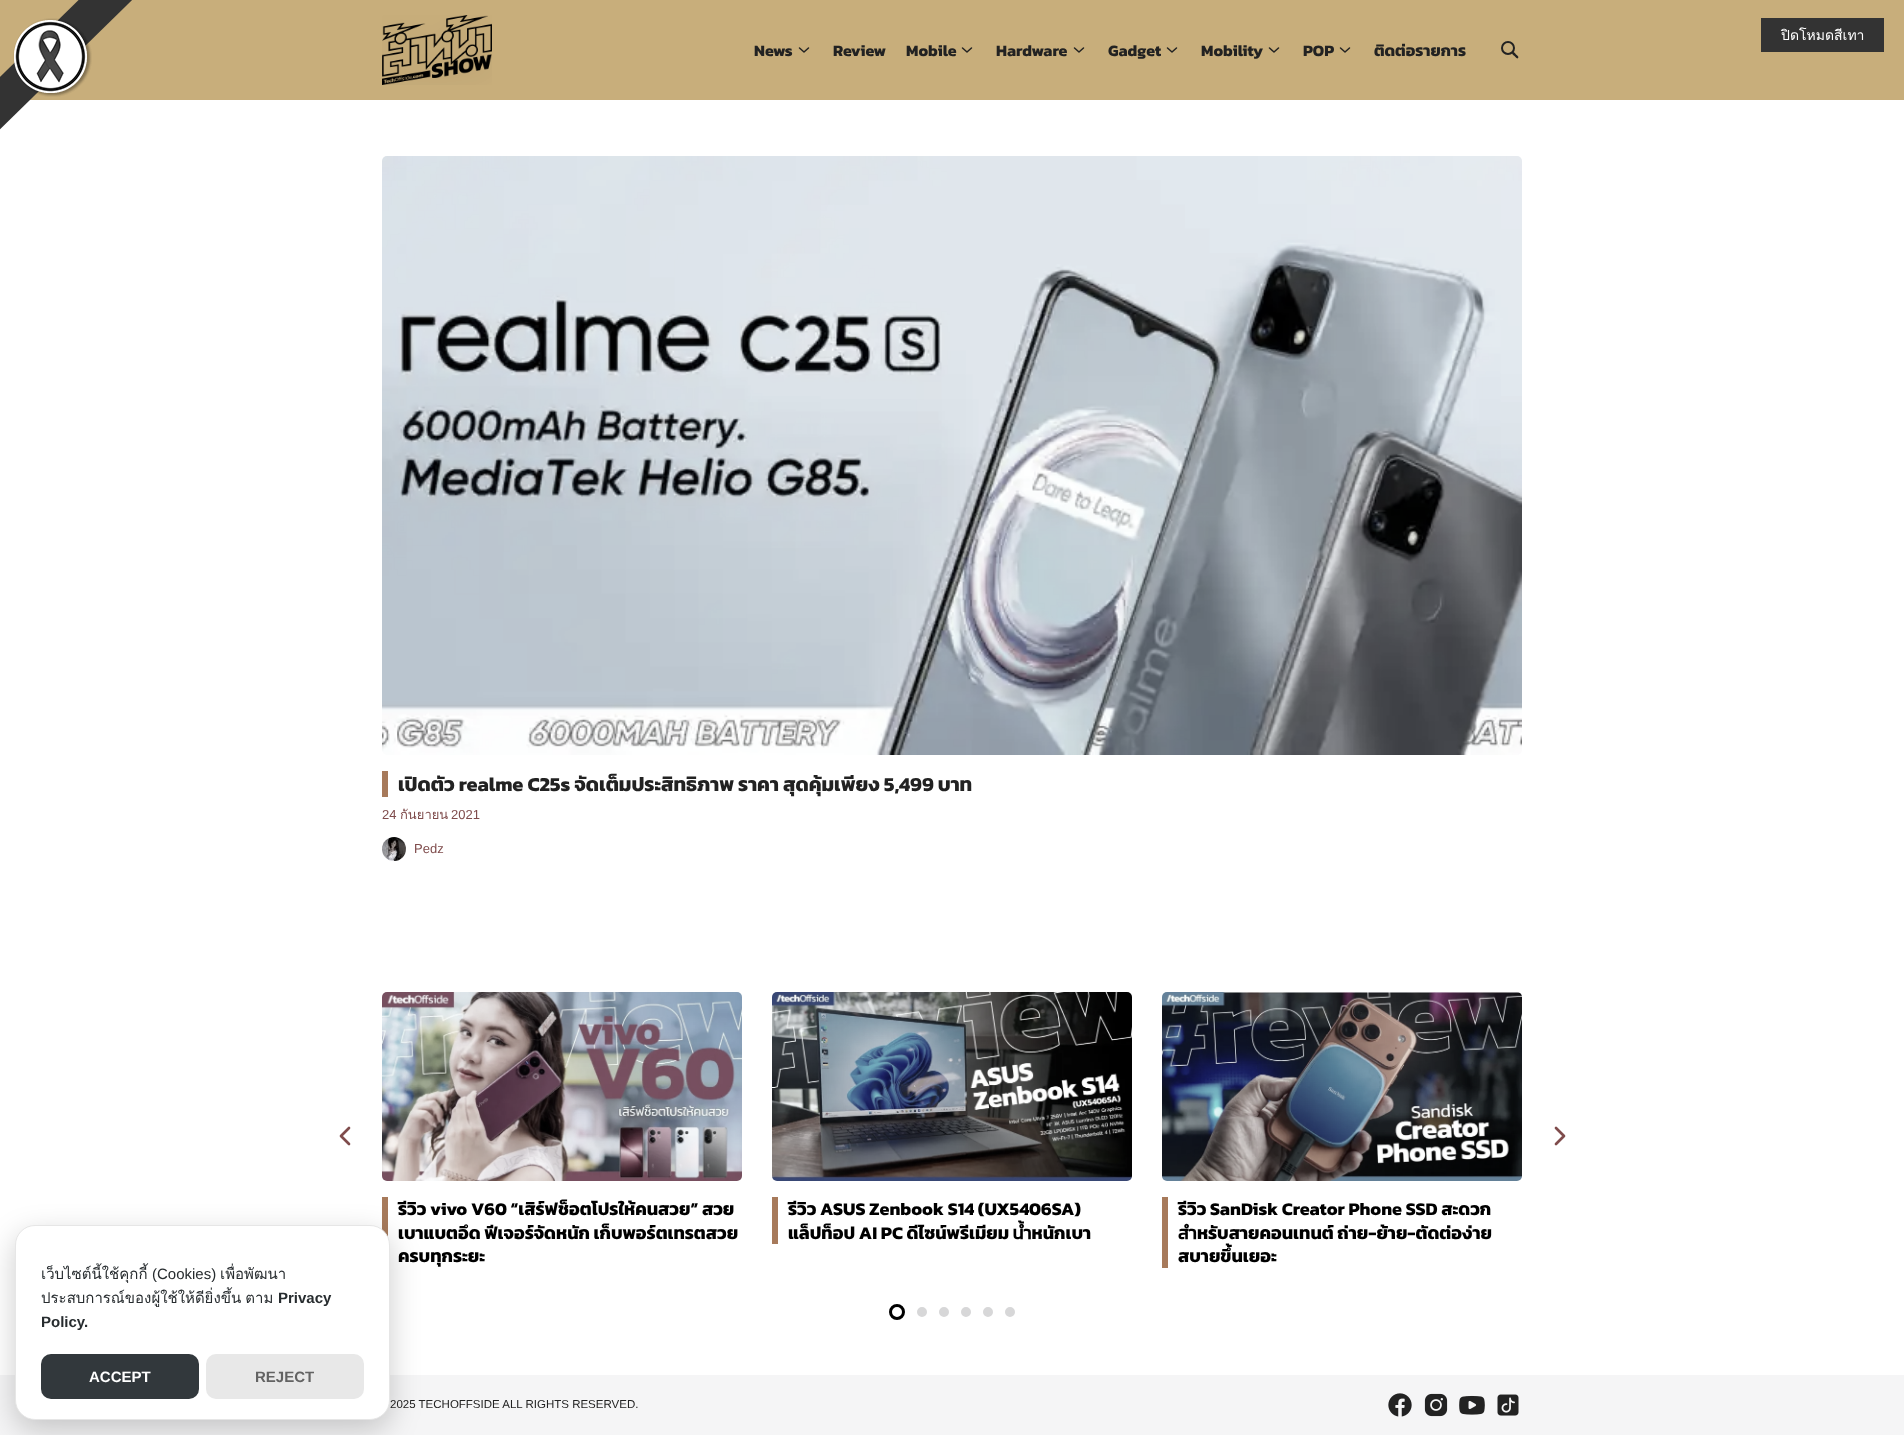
<?xml version="1.0" encoding="UTF-8"?>
<svg xmlns="http://www.w3.org/2000/svg" xmlns:xlink="http://www.w3.org/1999/xlink" width="1904" height="1435">
  <rect width="100%" height="100%" fill="#ffffff" />
  <rect x="382" y="1197" width="6" height="40" fill="#a77a5b" />
  <rect y="1375" width="1904" height="60" fill="#f5f5f6" />
  <rect x="15" y="1235" width="375" height="195" rx="20" fill="#020202" fill-opacity="0.2" filter="blur(15px)" />
  <rect x="15.5" y="1225.5" width="374" height="194" rx="19.5" fill="#ffffff" stroke="#e6e6e6" />
  <rect x="41" y="1354" width="158" height="45" rx="10" fill="#32383c" />
  <rect x="206" y="1354" width="158" height="45" rx="10" fill="#e8e8e8" />
  <rect width="1904" height="100" fill="#c8ae7b" />
  <image x="0" y="0" width="132" height="130" xlink:href="image1.png" />
  <rect x="1761" y="18" width="123" height="34" fill="#333333" />
  <path d="M 349 1144 l -8 -8 l 8 -8" fill="none" stroke="#7f4c4c" stroke-width="2.7" stroke-linecap="round" stroke-linejoin="round" />
  <path d="M 1556 1144 l 8 -8 l -8 -8" fill="none" stroke="#7f4c4c" stroke-width="2.7" stroke-linecap="round" stroke-linejoin="round" />
  <circle cx="897" cy="1312" r="6.5" fill="none" stroke="#000000" stroke-width="3" />
  <circle cx="922" cy="1312" r="3.5" fill="#d7d7d8" stroke="#d7d7d8" stroke-width="3" />
  <circle cx="944" cy="1312" r="3.5" fill="#d7d7d8" stroke="#d7d7d8" stroke-width="3" />
  <circle cx="966" cy="1312" r="3.5" fill="#d7d7d8" stroke="#d7d7d8" stroke-width="3" />
  <circle cx="988" cy="1312" r="3.5" fill="#d7d7d8" stroke="#d7d7d8" stroke-width="3" />
  <circle cx="1010" cy="1312" r="3.5" fill="#d7d7d8" stroke="#d7d7d8" stroke-width="3" />
  <image x="382" y="992" width="360" height="189" xlink:href="image2.png" />
  <image x="772" y="992" width="360" height="189" xlink:href="image3.png" />
  <rect x="772" y="1197" width="6" height="47" fill="#a77a5b" />
  <image x="1162" y="992" width="360" height="189" xlink:href="image4.png" />
  <rect x="1162" y="1197" width="6" height="71" fill="#a77a5b" />
  <image x="1388" y="1393" width="24" height="24" xlink:href="image5.png" />
  <image x="1424" y="1393" width="24" height="24" xlink:href="image6.png" />
  <image x="1459" y="1395" width="26" height="20" xlink:href="image7.png" />
  <image x="1497" y="1394" width="22" height="22" xlink:href="image8.png" />
  <image x="382" y="15" width="110" height="70" xlink:href="image9.png" />
  <path d="M 799.5 48 l 4.5 4 l 4.5 -4" fill="none" stroke="#222222" stroke-width="1.5" stroke-linecap="round" stroke-linejoin="round" />
  <path d="M 962.5 48 l 4.5 4 l 4.5 -4" fill="none" stroke="#222222" stroke-width="1.5" stroke-linecap="round" stroke-linejoin="round" />
  <path d="M 1074.5 48 l 4.5 4 l 4.5 -4" fill="none" stroke="#222222" stroke-width="1.5" stroke-linecap="round" stroke-linejoin="round" />
  <path d="M 1167.5 48 l 4.5 4 l 4.5 -4" fill="none" stroke="#222222" stroke-width="1.5" stroke-linecap="round" stroke-linejoin="round" />
  <path d="M 1269.5 48 l 4.5 4 l 4.5 -4" fill="none" stroke="#222222" stroke-width="1.5" stroke-linecap="round" stroke-linejoin="round" />
  <path d="M 1340.5 48 l 4.5 4 l 4.5 -4" fill="none" stroke="#222222" stroke-width="1.5" stroke-linecap="round" stroke-linejoin="round" />
  <path d="M 1512.5 52.5 c 1 -1.5 3 1.5 3.5 2 c 0.5 0.5 3.5 2.5 2 3.5 c -1 1.5 -3 -1.5 -3.5 -2 c -0.5 -0.5 -3.5 -2.5 -2 -3.5 z" fill="#222222" />
  <circle cx="1508" cy="48" r="6" fill="none" stroke="#222222" stroke-width="2" />
  <image x="382" y="156" width="1140" height="599" xlink:href="image10.png" />
  <rect x="382" y="771" width="6" height="26" fill="#a77a5b" />
  <image x="382" y="837" width="24" height="24" xlink:href="image11.png" />
  <text x="41" y="1279" style="font-family: Loma; font-size: 15px; fill: #272c2f">เว็บไซต์นี้ใช้คุกกี้</text>
  <text x="152" y="1279" style="font-family: Liberation Sans; font-size: 15px; fill: #272c2f">(Cookies)</text>
  <text x="220" y="1279" style="font-family: Loma; font-size: 15px; fill: #272c2f">เพื่อพัฒนา</text>
  <text x="41" y="1303" word-spacing="-1" style="font-family: Loma; font-size: 15px; fill: #272c2f">ประสบการณ์ของผู้ใช้ให้ดียิ่งขึ้น ตาม</text>
  <text x="278" y="1303" style="font-family: Liberation Sans; font-size: 15px; font-weight: bold; fill: #272c2f">Privacy</text>
  <text x="41" y="1327" style="font-family: Liberation Sans; font-size: 15px; font-weight: bold; fill: #272c2f">Policy.</text>
  <text x="89" y="1382" style="font-family: Liberation Sans; font-size: 15px; font-weight: bold; fill: #ffffff">ACCEPT</text>
  <text x="255" y="1382" style="font-family: Liberation Sans; font-size: 15px; font-weight: bold; fill: #636363">REJECT</text>
  <text x="1781" y="40" style="font-family: Loma; font-size: 14px; fill: #ffffff">ปิดโหมดสีเทา</text>
  <text x="398" y="1215" style="font-family: Kanit; font-size: 18px; font-weight: bold; fill: #000000">รีวิว vivo V60 “เสิร์ฟช็อตโปรให้คนสวย” สวย</text>
  <text x="398" y="1239" style="font-family: Kanit; font-size: 18px; font-weight: bold; fill: #000000">เบาแบตอึด ฟีเจอร์จัดหนัก เก็บพอร์ตเทรตสวย</text>
  <text x="398" y="1262" style="font-family: Kanit; font-size: 18px; font-weight: bold; fill: #000000">ครบทุกระยะ</text>
  <text x="788" y="1215" style="font-family: Kanit; font-size: 18px; font-weight: bold; fill: #000000">รีวิว ASUS Zenbook S14 (UX5406SA)</text>
  <text x="788" y="1239" style="font-family: Kanit; font-size: 18px; font-weight: bold; fill: #000000">แล็ปท็อป AI PC ดีไซน์พรีเมียม น้ำหนักเบา</text>
  <text x="1178" y="1215" style="font-family: Kanit; font-size: 18px; font-weight: bold; fill: #000000">รีวิว SanDisk Creator Phone SSD สะดวก</text>
  <text x="1178" y="1239" style="font-family: Kanit; font-size: 18px; font-weight: bold; fill: #000000">สำหรับสายคอนเทนต์ ถ่าย-ย้าย-ตัดต่อง่าย</text>
  <text x="1178" y="1262" style="font-family: Kanit; font-size: 18px; font-weight: bold; fill: #000000">สบายขึ้นเยอะ</text>
  <text x="390" y="1408" style="font-family: Liberation Sans; font-size: 11.5px; fill: #222222">2025 TECHOFFSIDE ALL RIGHTS RESERVED.</text>
  <text x="754" y="56" style="font-family: Kanit; font-size: 16px; font-weight: bold; fill: #222222">News</text>
  <text x="833" y="56" style="font-family: Kanit; font-size: 16px; font-weight: bold; fill: #222222">Review</text>
  <text x="906" y="56" style="font-family: Kanit; font-size: 16px; font-weight: bold; fill: #222222">Mobile</text>
  <text x="996" y="56" style="font-family: Kanit; font-size: 16px; font-weight: bold; fill: #222222">Hardware</text>
  <text x="1108" y="56" style="font-family: Kanit; font-size: 16px; font-weight: bold; fill: #222222">Gadget</text>
  <text x="1201" y="56" style="font-family: Kanit; font-size: 16px; font-weight: bold; fill: #222222">Mobility</text>
  <text x="1303" y="56" style="font-family: Kanit; font-size: 16px; font-weight: bold; fill: #222222">POP</text>
  <text x="1374" y="56" style="font-family: Kanit; font-size: 16px; font-weight: bold; fill: #222222">ติดต่อรายการ</text>
  <text x="398" y="791" style="font-family: Kanit; font-size: 20px; font-weight: bold; fill: #222222">เปิดตัว realme C25s จัดเต็มประสิทธิภาพ ราคา สุดคุ้มเพียง 5,499 บาท</text>
  <text x="382" y="819" style="font-family: Liberation Sans; font-size: 13px; fill: #7f4c4c">24</text>
  <text x="400" y="819" style="font-family: Loma; font-size: 13px; fill: #7f4c4c">กันยายน</text>
  <text x="451" y="819" style="font-family: Liberation Sans; font-size: 13px; fill: #7f4c4c">2021</text>
  <text x="414" y="853" style="font-family: Liberation Sans; font-size: 13px; fill: #7f4c4c">Pedz</text>
</svg>
